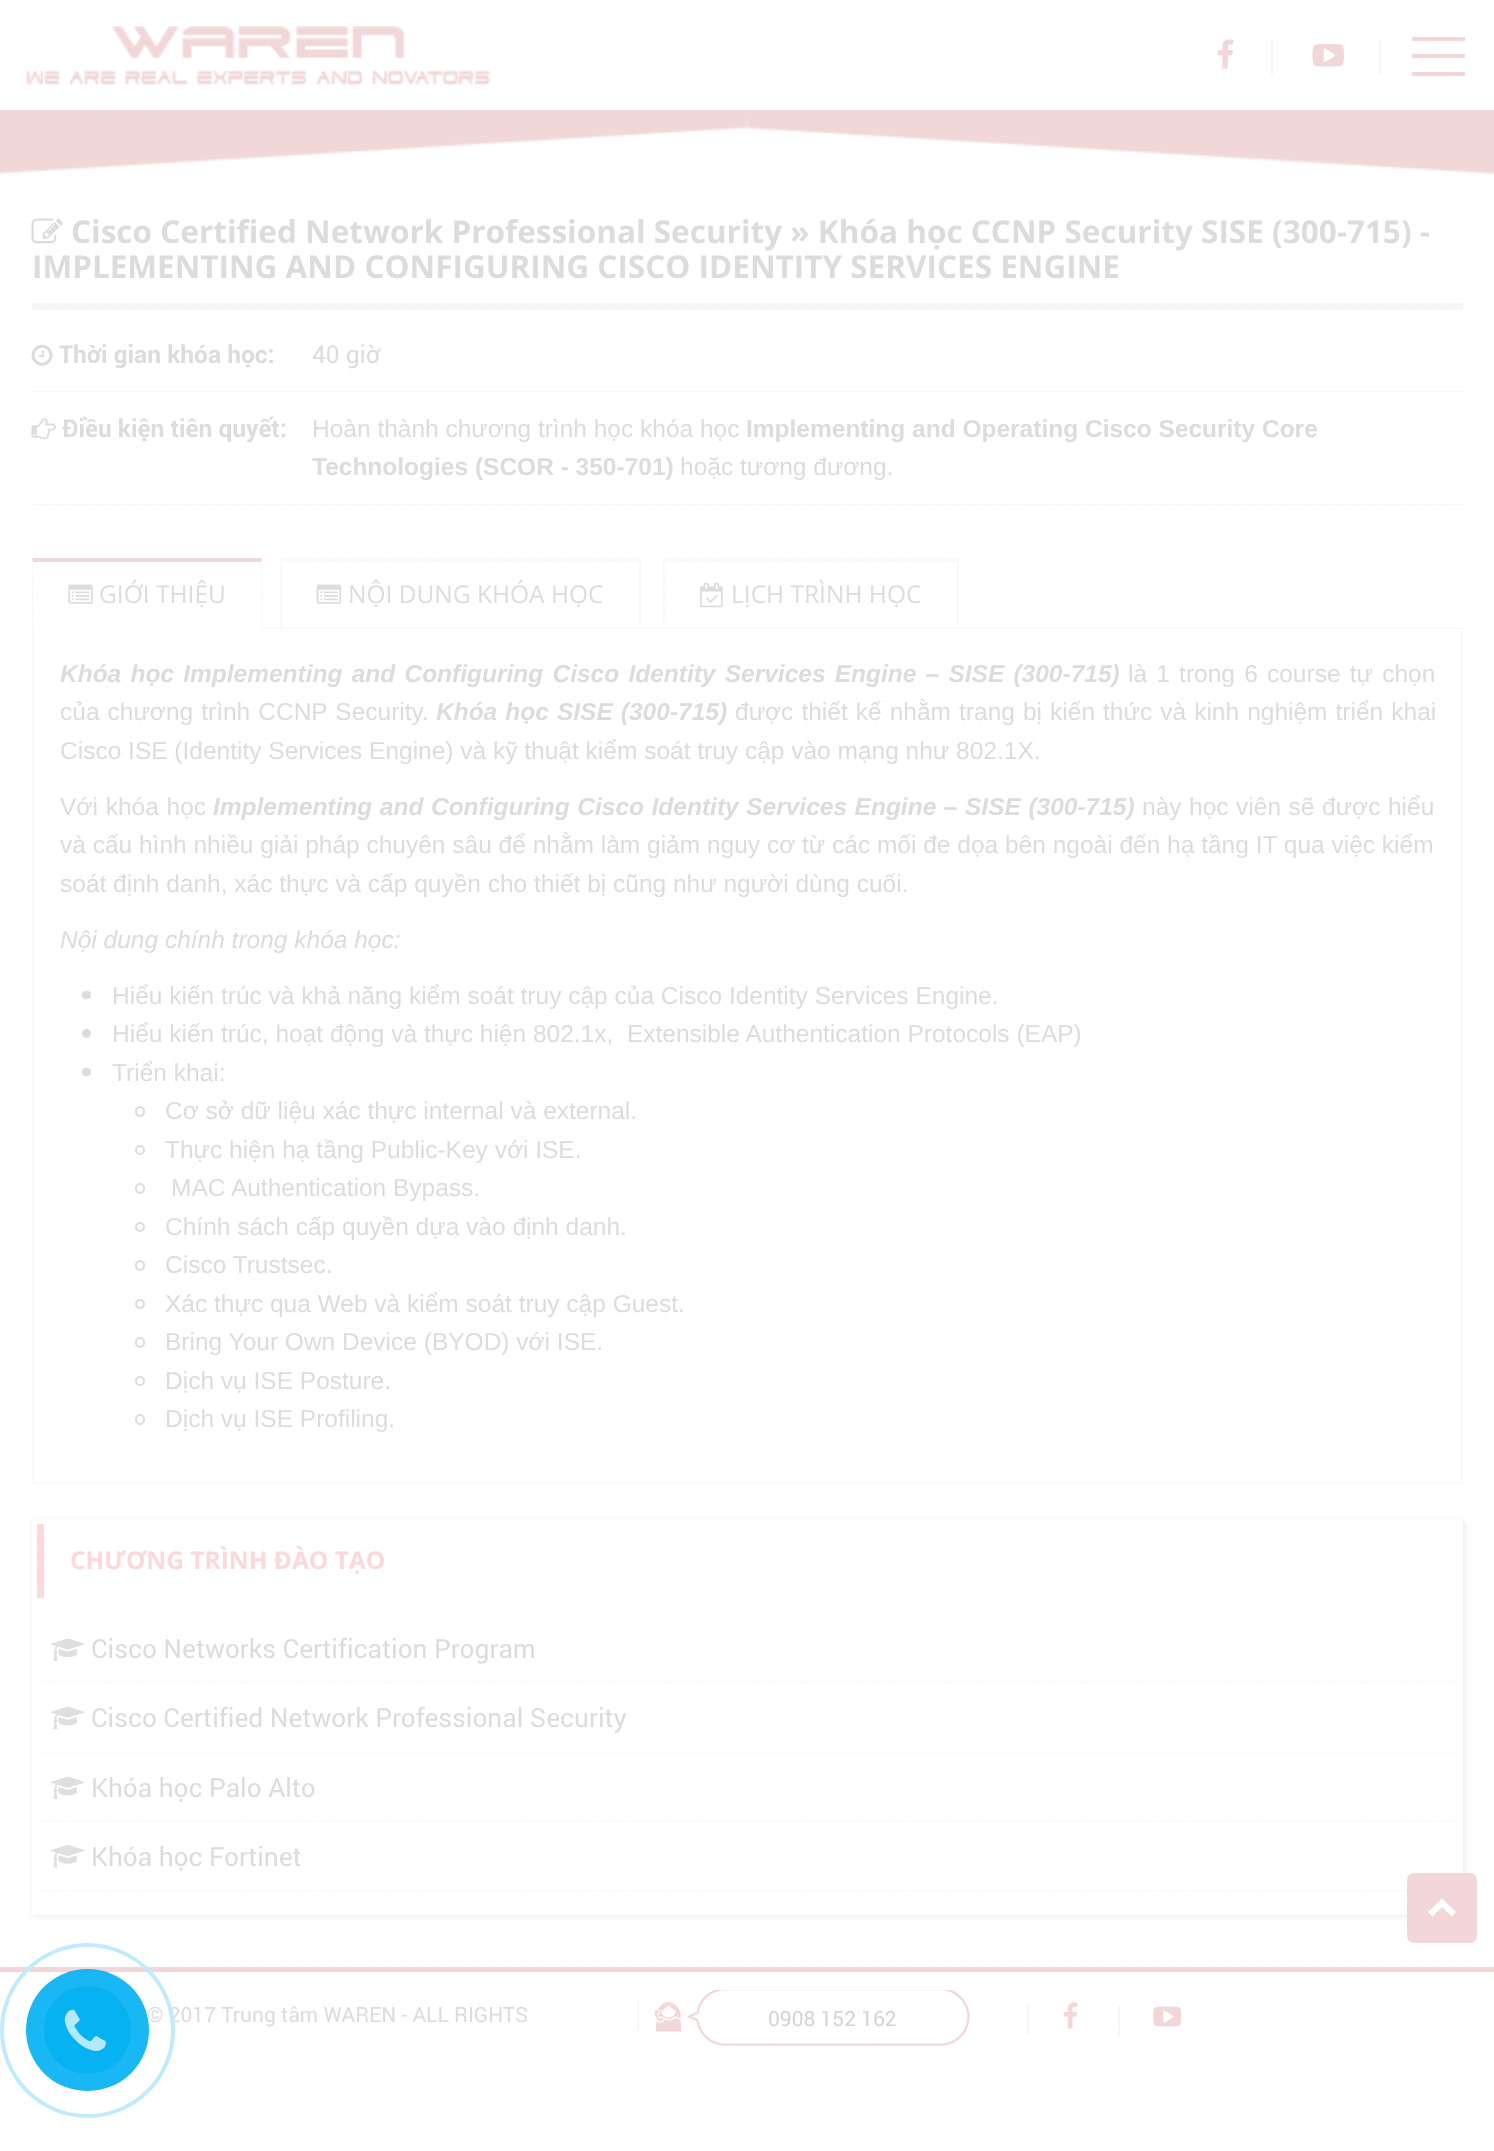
<?xml version="1.0" encoding="UTF-8"?>
<svg xmlns="http://www.w3.org/2000/svg" xmlns:xlink="http://www.w3.org/1999/xlink" width="1494" height="2151">
  <defs>
    <clipPath id="clip1"><path d="M 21 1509 h 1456 v 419 h -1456 z m 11 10 h 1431 v 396 h -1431 z" clip-rule="evenodd" /></clipPath>
  </defs>
  <rect width="100%" height="100%" fill="#ffffff" />
  <image x="0" y="117" width="1494" height="2034" xlink:href="image1.png" />
  <rect y="110" width="1494" height="7" fill="#f1d7d7" />
  <image x="26" y="26" width="465" height="60" xlink:href="image2.png" />
  <rect x="1271" y="39" width="2" height="36" fill="#f6f6f6" />
  <image x="1217" y="39" width="17" height="30" xlink:href="image3.png" />
  <rect x="1379" y="39" width="2" height="36" fill="#f6f6f6" />
  <image x="1312" y="44" width="32" height="23" xlink:href="image4.png" />
  <rect x="1412" y="37" width="53" height="4" fill="#f3d7d8" />
  <rect x="1412" y="54" width="53" height="4" fill="#f3d7d8" />
  <rect x="1412" y="72" width="53" height="4" fill="#f3d7d8" />
  <image x="0" y="117" width="748" height="58" xlink:href="image5.png" />
  <image x="747" y="117" width="747" height="58" xlink:href="image6.png" />
  <rect x="32" y="303" width="1431" height="7" fill="#f6f6f6" />
  <image x="31" y="218" width="32" height="26" xlink:href="image7.png" />
  <rect x="32" y="390" width="1431" height="2" fill="#f9f9f9" />
  <image x="31" y="344" width="22" height="22" xlink:href="image8.png" />
  <rect x="32" y="504" width="1431" height="2" fill="#f9f9f9" />
  <image x="31" y="418" width="25" height="22" xlink:href="image9.png" />
  <path d="M 32 558 h 230 l -1 4 h -228 z" fill="#f3d7d8" />
  <rect x="280" y="558" width="361" height="4" fill="#f9f9f9" />
  <rect x="639" y="558" width="2" height="70" fill="#f9f9f9" />
  <rect x="280" y="558" width="2" height="70" fill="#f9f9f9" />
  <rect x="663" y="558" width="296" height="4" fill="#f9f9f9" />
  <rect x="957" y="558" width="2" height="70" fill="#f9f9f9" />
  <rect x="663" y="558" width="2" height="70" fill="#f9f9f9" />
  <rect x="33" y="628" width="1429" height="855" fill="none" stroke="#f9f9f9" stroke-width="2" />
  <path d="M 262 558 v 70 l -1 -2 v -64 z" fill="#f9f9f9" />
  <rect x="32" y="627" width="231" height="2" fill="#ffffff" />
  <path d="M 32 628 v -70 l 1 4 v 64 z" fill="#f9f9f9" />
  <image x="68" y="584" width="25" height="20" xlink:href="image10.png" />
  <image x="316" y="584" width="26" height="20" xlink:href="image11.png" />
  <image x="700" y="582" width="23" height="26" xlink:href="image12.png" />
  <rect x="82" y="991" width="9" height="8" rx="4" fill="#dcdcdc" />
  <circle cx="86.5" cy="1033.5" r="4.5" fill="#dcdcdc" />
  <rect x="82" y="1068" width="9" height="8" rx="4" fill="#dcdcdc" />
  <rect x="136" y="1107" width="8" height="9" rx="4" fill="none" stroke="#dcdcdc" stroke-width="2" />
  <circle cx="140" cy="1150" r="4" fill="none" stroke="#dcdcdc" stroke-width="2" />
  <rect x="136" y="1184" width="8" height="9" rx="4" fill="none" stroke="#dcdcdc" stroke-width="2" />
  <circle cx="140" cy="1227" r="4" fill="none" stroke="#dcdcdc" stroke-width="2" />
  <rect x="136" y="1261" width="8" height="9" rx="4" fill="none" stroke="#dcdcdc" stroke-width="2" />
  <circle cx="140" cy="1304" r="4" fill="none" stroke="#dcdcdc" stroke-width="2" />
  <rect x="136" y="1338" width="8" height="9" rx="4" fill="none" stroke="#dcdcdc" stroke-width="2" />
  <circle cx="140" cy="1381" r="4" fill="none" stroke="#dcdcdc" stroke-width="2" />
  <rect x="136" y="1415" width="8" height="9" rx="4" fill="none" stroke="#dcdcdc" stroke-width="2" />
  <g clip-path="url(#clip1)">
    <rect x="33" y="1521" width="1432" height="395" fill="#ebebeb" filter="blur(3.5px)" />
  </g>
  <rect x="37" y="1524" width="7" height="74" fill="#fbd9da" />
  <path d="M 37 1682.5 h 1421" fill="none" stroke="#f9f9f9" stroke-width="1.8" stroke-dasharray="1.75 1.75" />
  <image x="50" y="1638" width="35" height="23" xlink:href="image13.png" />
  <path d="M 37 1752.5 h 1421" fill="none" stroke="#f9f9f9" stroke-width="1.8" stroke-dasharray="1.75 1.75" />
  <image x="50" y="1706" width="35" height="24" xlink:href="image14.png" />
  <path d="M 37 1821 h 1421" fill="none" stroke="#f9f9f9" stroke-width="1.8" stroke-dasharray="1.75 1.75" />
  <image x="50" y="1776" width="35" height="24" xlink:href="image15.png" />
  <path d="M 37 1891 h 1421" fill="none" stroke="#f9f9f9" stroke-width="1.8" stroke-dasharray="1.75 1.75" />
  <image x="50" y="1844" width="35" height="24" xlink:href="image16.png" />
  <rect y="1967" width="1494" height="5" fill="#f3d7d8" />
  <rect x="637" y="1999" width="2" height="31" fill="#f6f6f6" />
  <image x="655" y="1990" width="315" height="56" xlink:href="image18.png" />
  <rect x="1027" y="2004" width="2" height="31" fill="#f6f6f6" />
  <image x="1063" y="2002" width="15" height="27" xlink:href="image19.png" />
  <rect x="1118" y="2006" width="2" height="31" fill="#f6f6f6" />
  <image x="1153" y="2006" width="29" height="21" xlink:href="image20.png" />
  <rect x="1407" y="1873" width="70" height="70" rx="7" fill="#f3d7d8" />
  <path d="M 1442 1898.5 l 14 13.5 l -4 4.5 l -10 -9.5 l -9.5 9.5 l -4.5 -4.5 z" fill="#ffffff" />
  <text x="71" y="243" style="font-family: Open Sans; font-size: 31.5px; font-weight: bold; fill: #dcdcdc">Cisco Certified Network Professional Security » Khóa học CCNP Security SISE (300-715) -</text>
  <text x="32" y="278" style="font-family: Open Sans; font-size: 31.5px; font-weight: bold; fill: #dcdcdc">IMPLEMENTING AND CONFIGURING CISCO IDENTITY SERVICES ENGINE</text>
  <text x="59" y="363" style="font-family: Roboto; font-size: 24.5px; font-weight: bold; fill: #dcdcdc">Thời gian khóa học:</text>
  <text x="312" y="363" style="font-family: Roboto; font-size: 24.5px; fill: #dcdcdc">40 giờ</text>
  <text x="62" y="437" style="font-family: Roboto; font-size: 24.5px; font-weight: bold; fill: #dcdcdc">Điều kiện tiên quyết:</text>
  <text x="312" y="437" style="font-family: Liberation Sans; font-size: 24.5px; fill: #dcdcdc">Hoàn thành chương trình học khóa học</text>
  <text x="746" y="437" style="font-family: Liberation Sans; font-size: 24.5px; font-weight: bold; fill: #dcdcdc">Implementing and Operating Cisco Security Core</text>
  <text x="312" y="475" style="font-family: Liberation Sans; font-size: 24.5px; font-weight: bold; fill: #dcdcdc">Technologies (SCOR - 350-701)</text>
  <text x="680" y="475" style="font-family: Liberation Sans; font-size: 24.5px; fill: #dcdcdc">hoặc tương đương.</text>
  <text x="99" y="603" style="font-family: Open Sans; font-size: 24.5px; fill: #dcdcdc">GIỚI THIỆU</text>
  <text x="348" y="603" style="font-family: Open Sans; font-size: 24.5px; fill: #dcdcdc">NỘI DUNG KHÓA HỌC</text>
  <text x="731" y="603" style="font-family: Open Sans; font-size: 24.5px; fill: #dcdcdc">LỊCH TRÌNH HỌC</text>
  <text x="60" y="682" word-spacing="2.4" style="font-family: Liberation Sans; font-size: 24.5px; font-weight: bold; font-style: italic; fill: #dcdcdc">Khóa học Implementing and Configuring Cisco Identity Services Engine – SISE (300-715)</text>
  <text x="1128" y="682" word-spacing="2.4" style="font-family: Liberation Sans; font-size: 24.5px; fill: #dcdcdc">là 1 trong 6 course tự chọn</text>
  <text x="60" y="720" word-spacing="1.25" style="font-family: Liberation Sans; font-size: 24.5px; fill: #dcdcdc">của chương trình CCNP Security.</text>
  <text x="436" y="720" word-spacing="1.25" style="font-family: Liberation Sans; font-size: 24.5px; font-weight: bold; font-style: italic; fill: #dcdcdc">Khóa học SISE (300-715)</text>
  <text x="735" y="720" word-spacing="1.25" style="font-family: Liberation Sans; font-size: 24.5px; fill: #dcdcdc">được thiết kế nhằm trang bị kiến thức và kinh nghiệm triển khai</text>
  <text x="60" y="759" style="font-family: Liberation Sans; font-size: 24.5px; fill: #dcdcdc">Cisco ISE (Identity Services Engine) và kỹ thuật kiểm soát truy cập vào mạng như 802.1X.</text>
  <text x="60" y="815" word-spacing="1" style="font-family: Liberation Sans; font-size: 24.5px; fill: #dcdcdc">Với khóa học</text>
  <text x="213" y="815" word-spacing="0.75" style="font-family: Liberation Sans; font-size: 24.5px; font-weight: bold; font-style: italic; fill: #dcdcdc">Implementing and Configuring Cisco Identity Services Engine – SISE (300-715)</text>
  <text x="1142" y="815" word-spacing="0.75" style="font-family: Liberation Sans; font-size: 24.5px; fill: #dcdcdc">này học viên sẽ được hiểu</text>
  <text x="60" y="853" style="font-family: Liberation Sans; font-size: 24.5px; fill: #dcdcdc">và cấu hình nhiều giải pháp chuyên sâu để nhằm làm giảm nguy cơ từ các mối đe dọa bên ngoài đến hạ tầng IT qua việc kiểm</text>
  <text x="60" y="892" style="font-family: Liberation Sans; font-size: 24.5px; fill: #dcdcdc">soát định danh, xác thực và cấp quyền cho thiết bị cũng như người dùng cuối.</text>
  <text x="60" y="948" style="font-family: Liberation Sans; font-size: 24.5px; font-style: italic; fill: #dcdcdc">Nội dung chính trong khóa học:</text>
  <text x="112" y="1004" style="font-family: Liberation Sans; font-size: 24.5px; fill: #dcdcdc">Hiểu kiến trúc và khả năng kiểm soát truy cập của Cisco Identity Services Engine.</text>
  <text x="112" y="1042" style="font-family: Liberation Sans; font-size: 24.5px; fill: #dcdcdc" xml:space="preserve">Hiểu kiến trúc, hoạt động và thực hiện 802.1x,  Extensible Authentication Protocols (EAP)</text>
  <text x="112" y="1081" style="font-family: Liberation Sans; font-size: 24.5px; fill: #dcdcdc">Triển khai:</text>
  <text x="165" y="1119" style="font-family: Liberation Sans; font-size: 24.5px; fill: #dcdcdc">Cơ sở dữ liệu xác thực internal và external.</text>
  <text x="165" y="1158" style="font-family: Liberation Sans; font-size: 24.5px; fill: #dcdcdc">Thực hiện hạ tầng Public-Key với ISE.</text>
  <text x="171" y="1196" style="font-family: Liberation Sans; font-size: 24.5px; fill: #dcdcdc">MAC Authentication Bypass.</text>
  <text x="165" y="1235" style="font-family: Liberation Sans; font-size: 24.5px; fill: #dcdcdc">Chính sách cấp quyền dựa vào định danh.</text>
  <text x="165" y="1273" style="font-family: Liberation Sans; font-size: 24.5px; fill: #dcdcdc">Cisco Trustsec.</text>
  <text x="165" y="1312" style="font-family: Liberation Sans; font-size: 24.5px; fill: #dcdcdc">Xác thực qua Web và kiểm soát truy cập Guest.</text>
  <text x="165" y="1350" style="font-family: Liberation Sans; font-size: 24.5px; fill: #dcdcdc">Bring Your Own Device (BYOD) với ISE.</text>
  <text x="165" y="1389" style="font-family: Liberation Sans; font-size: 24.5px; fill: #dcdcdc">Dịch vụ ISE Posture.</text>
  <text x="165" y="1427" style="font-family: Liberation Sans; font-size: 24.5px; fill: #dcdcdc">Dịch vụ ISE Profiling.</text>
  <text x="70" y="1569" style="font-family: Open Sans; font-size: 24.5px; font-weight: bold; fill: #fbd9da">CHƯƠNG TRÌNH ĐÀO TẠO</text>
  <text x="91" y="1658" style="font-family: Roboto; font-size: 26.25px; fill: #dcdcdc">Cisco Networks Certification Program</text>
  <text x="91" y="1727" style="font-family: Roboto; font-size: 26.25px; fill: #dcdcdc">Cisco Certified Network Professional Security</text>
  <text x="91" y="1797" style="font-family: Roboto; font-size: 26.25px; fill: #dcdcdc">Khóa học Palo Alto</text>
  <text x="91" y="1866" style="font-family: Roboto; font-size: 26.25px; fill: #dcdcdc">Khóa học Fortinet</text>
  <text x="147" y="2022" style="font-family: Roboto; font-size: 21px; fill: #dcdcdc">© 2017 Trung tâm WAREN - ALL RIGHTS</text>
  <circle cx="87.5" cy="2030.5" r="85.5" fill="none" stroke="#bfebfc" stroke-width="4" />
  <rect x="26" y="1969" width="123" height="122" rx="61" fill="#00aff2" fill-opacity="0.9" />
  <rect x="44" y="1986" width="87" height="88" rx="43.5" fill="#00aff2" fill-opacity="0.7" />
  <image x="64" y="2009" width="42" height="42" xlink:href="image17.png" />
  <text x="768" y="2026" style="font-family: Roboto; font-size: 21px; fill: #d4d4d4">0908 152 162</text>
</svg>
